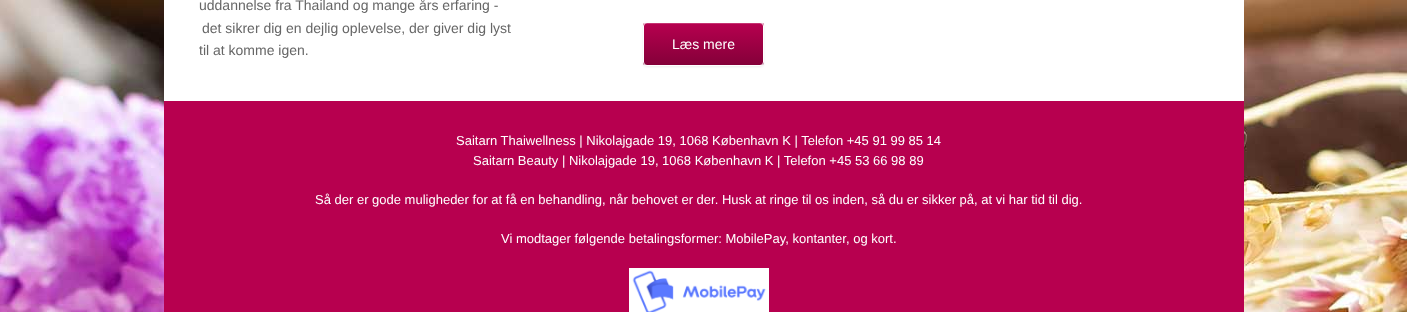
<?xml version="1.0" encoding="UTF-8"?>
<svg xmlns="http://www.w3.org/2000/svg" xmlns:xlink="http://www.w3.org/1999/xlink" width="1407" height="312">
  <defs>
    <clipPath id="clip1"><rect x="643" y="22" width="121" height="44" rx="4" /></clipPath>
    <linearGradient id="g1" gradientUnits="userSpaceOnUse" x1="644" y1="65" x2="644" y2="23"><stop offset="0" stop-color="#840039" /><stop offset="1" stop-color="#b7004f" /></linearGradient>
  </defs>
  <rect width="100%" height="100%" fill="#ffffff" />
  <image x="0" y="0" width="1407" height="312" xlink:href="image1.png" />
  <rect x="164" width="1080" height="101" fill="#ffffff" />
  <rect x="643" y="23" width="121" height="44" rx="4" fill="#000000" fill-opacity="0.07" filter="blur(1px)" />
  <g clip-path="url(#clip1)">
    <rect x="643" y="23" width="121" height="42" fill="url(#g1)" />
  </g>
  <path d="M 646 24 h 114 l 3 1 v 1 c 0 -2 -1 -3 -3 -3 h -114 c -1 0 -2 1 -2 3 c 0 -1 1 -2 2 -2 z" fill="#c53372" />
  <rect x="643.5" y="22.5" width="120" height="43" rx="3.5" fill="none" stroke="#ffffff" />
  <rect x="164" y="101" width="1080" height="211" fill="#b7004f" />
  <image x="629" y="268" width="140" height="44" xlink:href="image2.png" />
  <text x="199" y="10" style="font-family: Liberation Sans; font-size: 14px; fill: #666666">uddannelse fra Thailand og mange års erfaring -</text>
  <text x="202" y="33" style="font-family: Liberation Sans; font-size: 14px; fill: #666666">det sikrer dig en dejlig oplevelse, der giver dig lyst</text>
  <text x="199" y="55" style="font-family: Liberation Sans; font-size: 14px; fill: #666666">til at komme igen.</text>
  <text x="672" y="49" style="font-family: Liberation Sans; font-size: 14px; fill: #ffffff">Læs mere</text>
  <text x="456" y="145" style="font-family: Liberation Sans; font-size: 13px; fill: #ffffff">Saitarn Thaiwellness | Nikolajgade 19, 1068 København K | Telefon +45 91 99 85 14</text>
  <text x="473" y="165" style="font-family: Liberation Sans; font-size: 13px; fill: #ffffff">Saitarn Beauty | Nikolajgade 19, 1068 København K | Telefon +45 53 66 98 89</text>
  <text x="315" y="204" style="font-family: Liberation Sans; font-size: 13px; fill: #ffffff">Så der er gode muligheder for at få en behandling, når behovet er der. Husk at ringe til os inden, så du er sikker på, at vi har tid til dig.</text>
  <text x="501" y="243" style="font-family: Liberation Sans; font-size: 13px; fill: #ffffff">Vi modtager følgende betalingsformer: MobilePay, kontanter, og kort.</text>
</svg>
